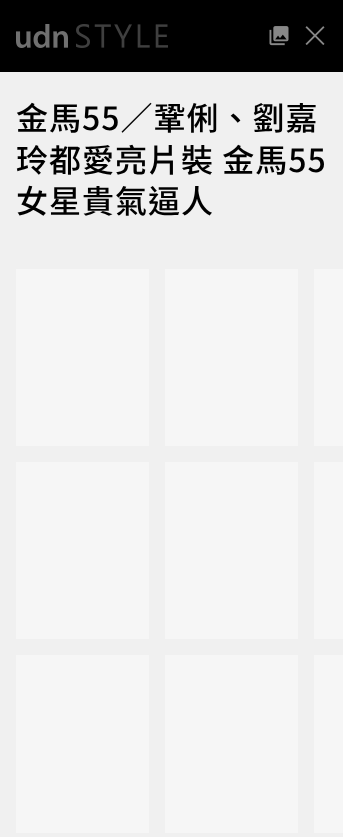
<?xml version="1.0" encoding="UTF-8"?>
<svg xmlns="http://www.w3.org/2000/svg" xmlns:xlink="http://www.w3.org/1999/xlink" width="343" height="837">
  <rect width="100%" height="100%" fill="#f0f0f0" />
  <rect width="343" height="72" fill="#000000" />
  <image x="16" y="24" width="52" height="24" xlink:href="image1.png" />
  <image x="76" y="24" width="92" height="24" xlink:href="image2.png" />
  <image x="269" y="26" width="20" height="20" xlink:href="image3.png" />
  <image x="305" y="26" width="20" height="19" xlink:href="image4.png" />
  <rect x="16" y="269" width="133" height="177" fill="#f6f6f6" />
  <rect x="165" y="269" width="133" height="177" fill="#f6f6f6" />
  <rect x="314" y="269" width="29" height="177" fill="#f6f6f6" />
  <rect x="16" y="462" width="133" height="177" fill="#f6f6f6" />
  <rect x="165" y="462" width="133" height="177" fill="#f6f6f6" />
  <rect x="314" y="462" width="29" height="177" fill="#f6f6f6" />
  <rect x="16" y="655" width="133" height="178" fill="#f6f6f6" />
  <rect x="165" y="655" width="133" height="178" fill="#f6f6f6" />
  <rect x="314" y="655" width="29" height="178" fill="#f6f6f6" />
  <text x="16" y="130" style="font-family: Noto Sans TC; font-size: 32px; font-weight: 500; letter-spacing: 1px; fill: #000000">金馬55／鞏俐、劉嘉</text>
  <text x="16" y="172" style="font-family: Noto Sans TC; font-size: 32px; font-weight: 500; letter-spacing: 1px; fill: #000000">玲都愛亮片裝 金馬55</text>
  <text x="16" y="213" style="font-family: Noto Sans TC; font-size: 32px; font-weight: 500; letter-spacing: 1px; fill: #000000">女星貴氣逼人</text>
</svg>
